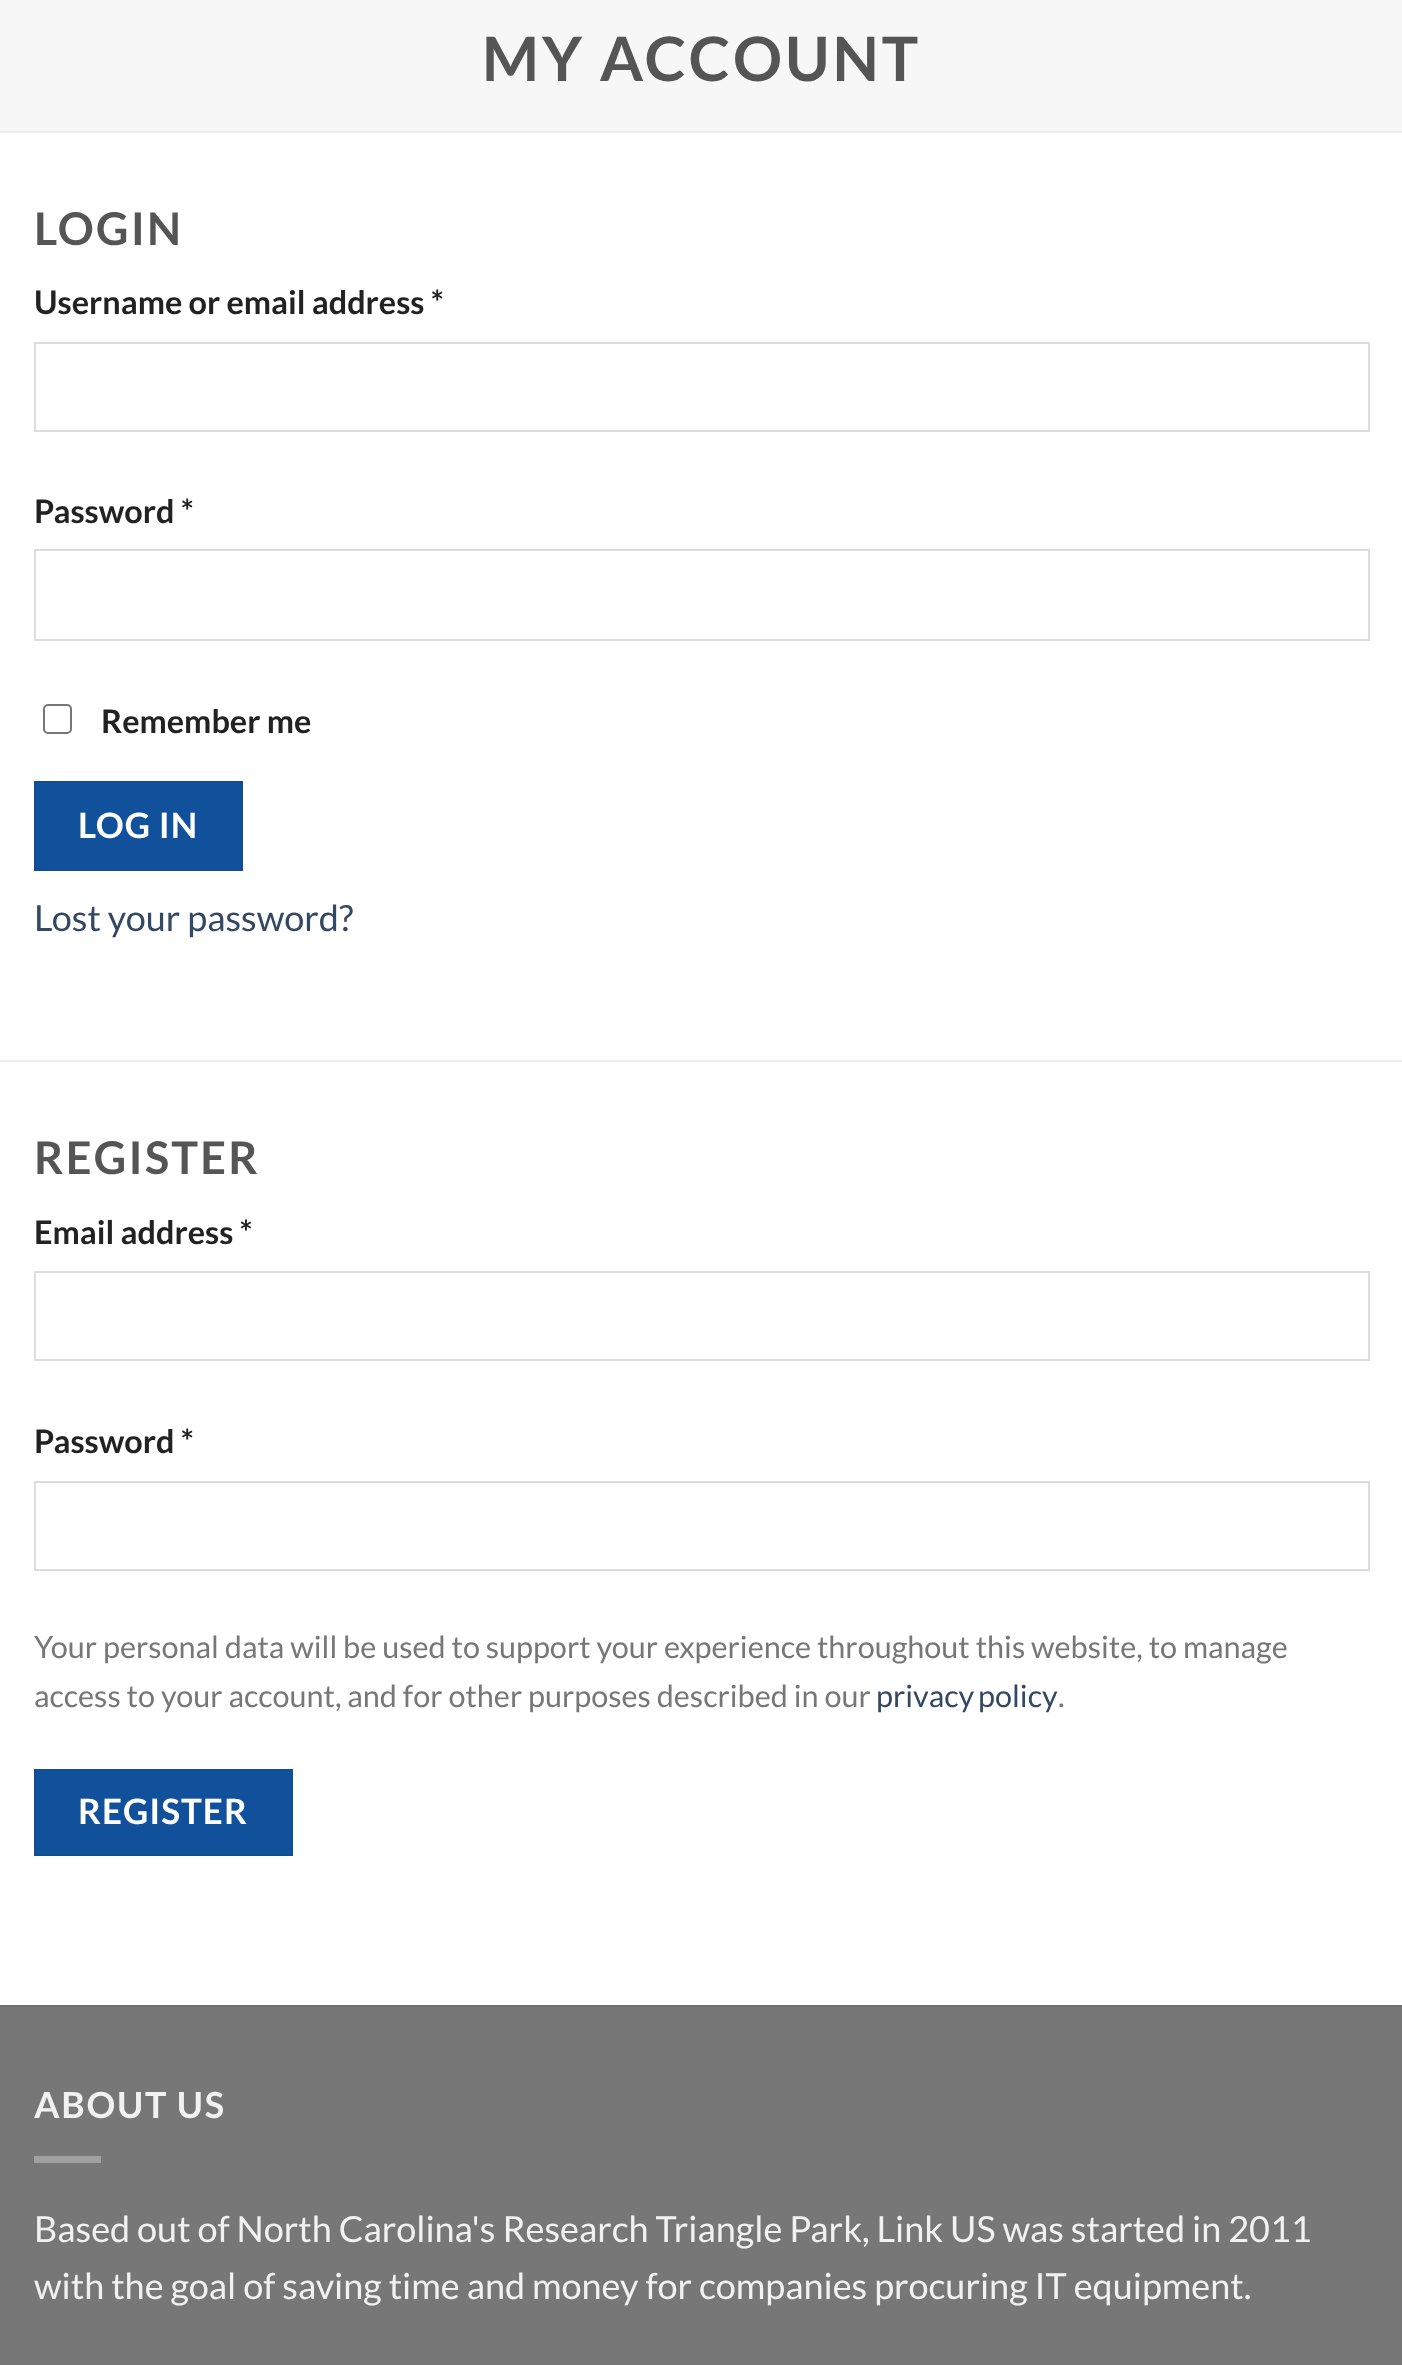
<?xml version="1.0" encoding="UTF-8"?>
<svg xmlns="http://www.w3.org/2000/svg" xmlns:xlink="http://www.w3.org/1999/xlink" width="1402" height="2365">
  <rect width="100%" height="100%" fill="#ffffff" />
  <rect width="1402" height="131" fill="#f7f7f7" />
  <rect y="131" width="1402" height="2" fill="#ececec" />
  <rect y="1060" width="1402" height="2" fill="#ececec" />
  <rect x="35" y="343" width="1334" height="88" fill="none" stroke="#dddddd" stroke-width="2" />
  <rect x="35" y="550" width="1334" height="90" fill="none" stroke="#dddddd" stroke-width="2" />
  <rect x="44" y="705" width="27" height="28" rx="4" fill="none" stroke="#767676" stroke-width="2" />
  <rect x="35" y="782" width="207" height="88" fill="#11519b" stroke="#104d93" stroke-width="2" />
  <rect x="35" y="1272" width="1334" height="88" fill="none" stroke="#dddddd" stroke-width="2" />
  <rect x="35" y="1482" width="1334" height="88" fill="none" stroke="#dddddd" stroke-width="2" />
  <rect x="35" y="1770" width="257" height="85" fill="#11519b" stroke="#104d93" stroke-width="2" />
  <rect y="2007" width="1402" height="358" fill="#777777" />
  <rect y="2005" width="1402" height="2" fill="#717171" />
  <rect x="34" y="2156" width="67" height="7" fill="#a0a0a0" />
  <text x="482" y="81" style="font-family: Lato; font-size: 61.25px; font-weight: bold; letter-spacing: 3px; fill: #555555">MY ACCOUNT</text>
  <text x="34" y="245" style="font-family: Lato; font-size: 45px; font-weight: bold; letter-spacing: 2.25px; fill: #555555">LOGIN</text>
  <text x="34" y="314" style="font-family: Lato; font-size: 32.4px; font-weight: bold; fill: #222222">Username or email address *</text>
  <text x="34" y="523" style="font-family: Lato; font-size: 32.4px; font-weight: bold; fill: #222222">Password *</text>
  <text x="101" y="733" style="font-family: Lato; font-size: 32.4px; font-weight: bold; fill: #222222">Remember me</text>
  <text x="78" y="838" style="font-family: Lato; font-size: 35px; font-weight: bold; letter-spacing: 1px; fill: #ffffff">LOG IN</text>
  <text x="34" y="931" style="font-family: Lato; font-size: 36px; fill: #334862">Lost your password?</text>
  <text x="34" y="1174" style="font-family: Lato; font-size: 45px; font-weight: bold; letter-spacing: 2.25px; fill: #555555">REGISTER</text>
  <text x="34" y="1244" style="font-family: Lato; font-size: 32.4px; font-weight: bold; fill: #222222">Email address *</text>
  <text x="34" y="1453" style="font-family: Lato; font-size: 32.4px; font-weight: bold; fill: #222222">Password *</text>
  <text x="34" y="1658" style="font-family: Lato; font-size: 30.6px; fill: #777777">Your personal data will be used to support your experience throughout this website, to manage</text>
  <text x="34" y="1707" style="font-family: Lato; font-size: 30.6px; fill: #777777">access to your account, and for other purposes described in our</text>
  <text x="876" y="1707" word-spacing="-2" style="font-family: Lato; font-size: 30.6px; fill: #334862">privacy policy</text>
  <text x="1058" y="1707" style="font-family: Lato; font-size: 30.6px; fill: #777777">.</text>
  <text x="78" y="1824" style="font-family: Lato; font-size: 35px; font-weight: bold; letter-spacing: 1px; fill: #ffffff">REGISTER</text>
  <text x="34" y="2118" style="font-family: Lato; font-size: 36px; font-weight: bold; letter-spacing: 1.75px; fill: #f1f1f1">ABOUT US</text>
  <text x="34" y="2242" style="font-family: Lato; font-size: 36px; fill: #f1f1f1">Based out of North Carolina's Research Triangle Park, Link US was started in 2011</text>
  <text x="34" y="2299" style="font-family: Lato; font-size: 36px; fill: #f1f1f1">with the goal of saving time and money for companies procuring IT equipment.</text>
</svg>
